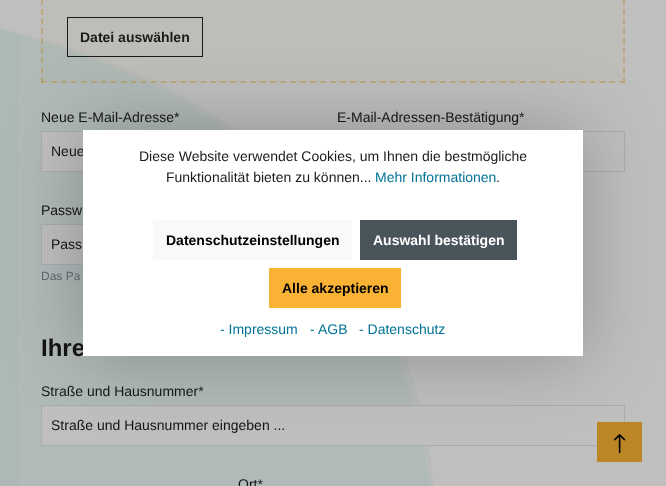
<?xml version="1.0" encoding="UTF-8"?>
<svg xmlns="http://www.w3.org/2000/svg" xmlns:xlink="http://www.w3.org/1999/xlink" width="666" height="486">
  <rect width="100%" height="100%" fill="#bfbfbf" />
  <image x="0" y="28" width="434" height="458" xlink:href="image1.png" />
  <rect x="20.5" y="-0.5" width="625" height="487" fill="none" stroke="#bfbfbf" stroke-opacity="0.3" />
  <rect x="41" width="584" height="83" fill="#bb8626" fill-opacity="0.03" />
  <path d="M 624 -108 v 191" fill="none" stroke="#bea883" stroke-width="2" stroke-dasharray="6 3.74" />
  <path d="M 41 82 h 584" fill="none" stroke="#bb8626" stroke-opacity="0.38" stroke-width="2" stroke-dasharray="6 3.97" />
  <path d="M 42 -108 v 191" fill="none" stroke="#bb8626" stroke-opacity="0.38" stroke-width="2" stroke-dasharray="6 3.74" />
  <rect x="67.5" y="17.5" width="135" height="39" fill="none" stroke="#1b1c1a" />
  <rect x="42" y="132" width="41" height="39" fill="#bfbfbf" />
  <rect x="41.5" y="131.5" width="287" height="40" fill="none" stroke="#a9adb0" />
  <rect x="337.5" y="131.5" width="287" height="40" fill="none" stroke="#a9adb0" />
  <rect x="42" y="225" width="41" height="39" fill="#bfbfbf" />
  <rect x="41.5" y="224.5" width="287" height="40" fill="none" stroke="#a9adb0" />
  <rect x="42" y="406" width="386" height="39" fill="#bfbfbf" />
  <rect x="41.5" y="405.5" width="583" height="40" fill="none" stroke="#a9adb0" />
  <rect x="597" y="422" width="45" height="40" fill="#bb8626" />
  <image x="614" y="434" width="12" height="19" xlink:href="image2.png" />
  <rect x="83" y="130" width="500" height="226" fill="#000000" fill-opacity="0.25" filter="blur(37px)" />
  <text x="80" y="42" style="font-family: Liberation Sans; font-size: 14px; font-weight: bold; fill: #1b1c1a">Datei auswählen</text>
  <text x="41" y="122" style="font-family: Liberation Sans; font-size: 14px; fill: #141313">Neue E-Mail-Adresse*</text>
  <text x="51" y="156" style="font-family: Liberation Sans; font-size: 14px; fill: #141313">Neue</text>
  <text x="337" y="122" style="font-family: Liberation Sans; font-size: 14px; fill: #141313">E-Mail-Adressen-Bestätigung*</text>
  <text x="41" y="215" style="font-family: Liberation Sans; font-size: 14px; fill: #141313">Passw</text>
  <text x="51" y="249" style="font-family: Liberation Sans; font-size: 14px; fill: #141313">Pass</text>
  <text x="41" y="280" style="font-family: Liberation Sans; font-size: 12px; fill: #5b636c">Das Pa</text>
  <text x="41" y="356" style="font-family: Liberation Sans; font-size: 24px; font-weight: bold; fill: #141313">Ihre</text>
  <text x="41" y="396" style="font-family: Liberation Sans; font-size: 14px; fill: #141313">Straße und Hausnummer*</text>
  <text x="51" y="430" style="font-family: Liberation Sans; font-size: 14px; fill: #141313">Straße und Hausnummer eingeben ...</text>
  <text x="238" y="489" style="font-family: Liberation Sans; font-size: 14px; fill: #141313">Ort*</text>
  <rect x="83" y="130" width="500" height="226" fill="#ffffff" />
  <text x="139" y="161" style="font-family: Liberation Sans; font-size: 14px; fill: #1b1c1a">Diese Website verwendet Cookies, um Ihnen die bestmögliche</text>
  <text x="166" y="182" style="font-family: Liberation Sans; font-size: 14px; fill: #1b1c1a">Funktionalität bieten zu können...</text>
  <text x="375" y="182" style="font-family: Liberation Sans; font-size: 14px; fill: #007396">Mehr Informationen</text>
  <text x="496" y="182" style="font-family: Liberation Sans; font-size: 14px; fill: #1b1c1a">.</text>
  <rect x="153" y="220" width="199" height="40" fill="#f9f9f9" />
  <text x="166" y="245" style="font-family: Liberation Sans; font-size: 14px; font-weight: bold; fill: #000000">Datenschutzeinstellungen</text>
  <rect x="360" y="220" width="157" height="40" fill="#4a545b" />
  <text x="373" y="245" style="font-family: Liberation Sans; font-size: 14px; font-weight: bold; fill: #ffffff">Auswahl bestätigen</text>
  <rect x="269" y="268" width="132" height="40" fill="#f9b233" />
  <text x="282" y="293" style="font-family: Liberation Sans; font-size: 14px; font-weight: bold; fill: #000000">Alle akzeptieren</text>
  <text x="220" y="334" style="font-family: Liberation Sans; font-size: 14px; fill: #007396">- Impressum</text>
  <text x="310" y="334" style="font-family: Liberation Sans; font-size: 14px; fill: #007396">-</text>
  <text x="318" y="334" style="font-family: Liberation Sans; font-size: 14px; fill: #007396">AGB</text>
  <text x="359" y="334" style="font-family: Liberation Sans; font-size: 14px; fill: #007396">- Datenschutz</text>
</svg>
